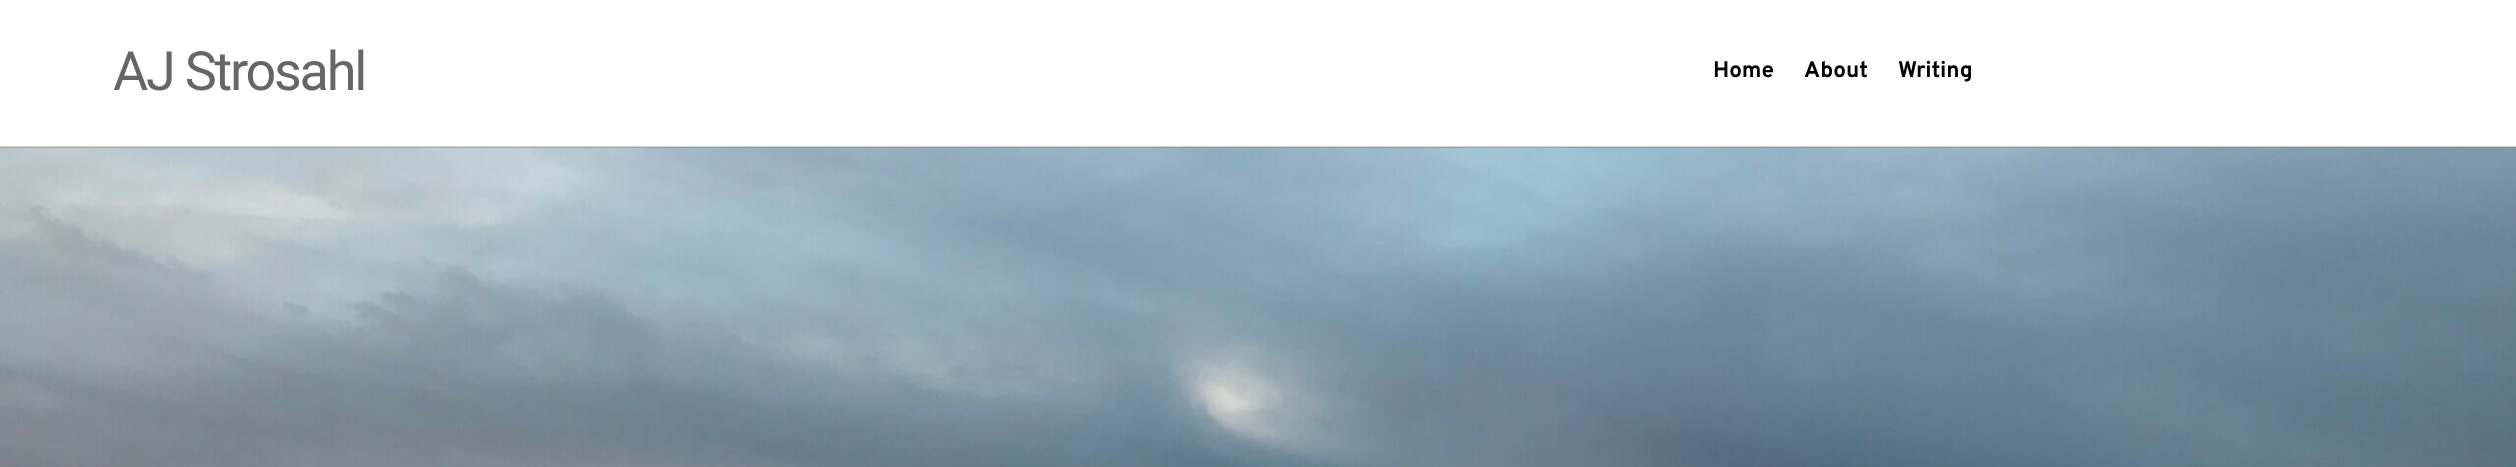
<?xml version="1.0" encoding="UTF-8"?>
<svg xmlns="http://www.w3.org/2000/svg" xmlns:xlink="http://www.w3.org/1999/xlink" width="2516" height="467">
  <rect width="100%" height="100%" fill="#ffffff" />
  <image x="0" y="147" width="2516" height="320" xlink:href="image1.png" />
  <rect y="146" width="2516" height="2" fill="#666666" fill-opacity="0.3" />
  <text x="113" y="90" style="font-family: Roboto; font-size: 54px; letter-spacing: -2.25px; fill: #666666">AJ Strosahl</text>
  <text x="1713" y="77" style="font-family: Overpass; font-size: 22.5px; font-weight: bold; fill: #000000">Home</text>
  <text x="1804" y="77" style="font-family: Overpass; font-size: 22.5px; font-weight: bold; fill: #000000">About</text>
  <text x="1898" y="77" style="font-family: Overpass; font-size: 22.5px; font-weight: bold; fill: #000000">Writing</text>
</svg>
